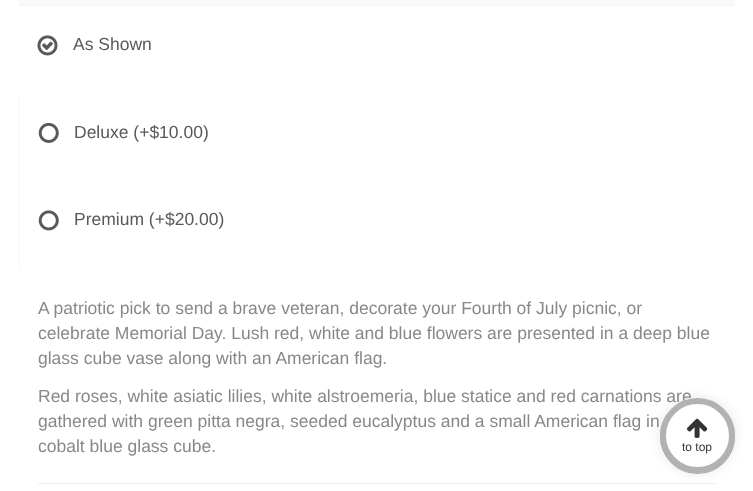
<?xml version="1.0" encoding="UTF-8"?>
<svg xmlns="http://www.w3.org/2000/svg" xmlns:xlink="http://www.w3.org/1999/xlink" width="753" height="491">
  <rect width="100%" height="100%" fill="#ffffff" />
  <rect x="19" width="716" height="5" fill="#f9f9f9" />
  <rect x="19" y="5" width="716" height="1" fill="#f3f3f3" />
  <image x="37" y="35" width="21" height="21" xlink:href="image1.png" />
  <rect x="19" y="94" width="1" height="175" fill="#f6f6f6" />
  <image x="38" y="122" width="21" height="21" xlink:href="image2.png" />
  <image x="38" y="210" width="21" height="21" xlink:href="image3.png" />
  <rect x="38" y="483" width="678" height="1" fill="#eeeeee" />
  <rect x="660" y="398" width="75" height="75" rx="37.5" fill="#000000" fill-opacity="0.1" filter="blur(6px)" />
  <rect x="660" y="399" width="75" height="75" rx="37.5" fill="#000000" fill-opacity="0.3" filter="blur(0.5px)" />
  <text x="73" y="50" style="font-family: Liberation Sans; font-size: 17.5px; fill: #595959">As Shown</text>
  <text x="74" y="138" style="font-family: Liberation Sans; font-size: 17.5px; fill: #595959">Deluxe (+$10.00)</text>
  <text x="74" y="225" style="font-family: Liberation Sans; font-size: 17.5px; fill: #595959">Premium (+$20.00)</text>
  <text x="38" y="314" style="font-family: Liberation Sans; font-size: 17.5px; fill: #888888">A patriotic pick to send a brave veteran, decorate your Fourth of July picnic, or</text>
  <text x="38" y="339" style="font-family: Liberation Sans; font-size: 17.5px; fill: #888888">celebrate Memorial Day. Lush red, white and blue flowers are presented in a deep blue</text>
  <text x="38" y="364" style="font-family: Liberation Sans; font-size: 17.5px; fill: #888888">glass cube vase along with an American flag.</text>
  <text x="38" y="402" style="font-family: Liberation Sans; font-size: 17.5px; fill: #888888">Red roses, white asiatic lilies, white alstroemeria, blue statice and red carnations are</text>
  <text x="38" y="427" style="font-family: Liberation Sans; font-size: 17.5px; fill: #888888">gathered with green pitta negra, seeded eucalyptus and a small American flag in</text>
  <text x="38" y="452" style="font-family: Liberation Sans; font-size: 17.5px; fill: #888888">cobalt blue glass cube.</text>
  <circle cx="697.5" cy="435.5" r="37.5" fill="#ffffff" />
  <circle cx="697.5" cy="435.5" r="34.5" fill="none" stroke="#000000" stroke-opacity="0.3" stroke-width="6" />
  <image x="687" y="418" width="21" height="20" xlink:href="image4.png" />
  <text x="682" y="451" style="font-family: Liberation Sans; font-size: 12px; fill: #333333">to top</text>
</svg>
